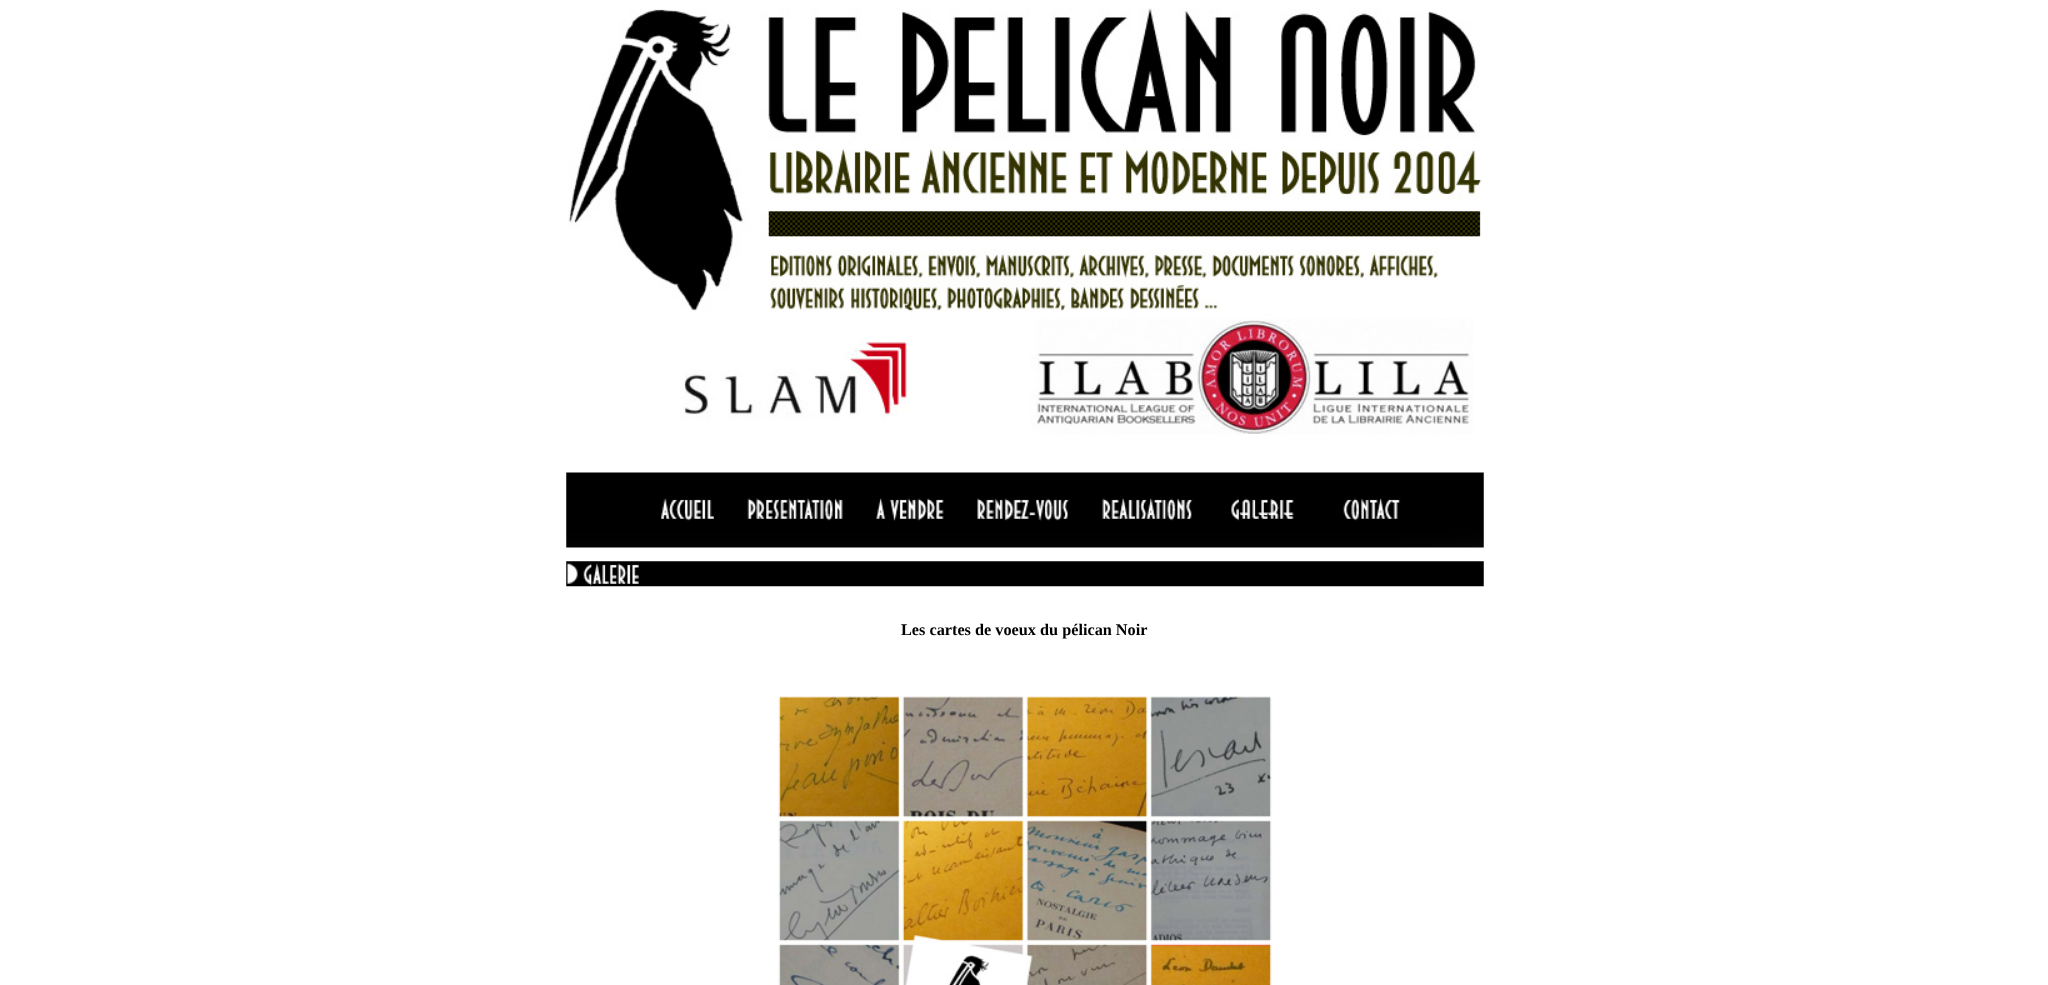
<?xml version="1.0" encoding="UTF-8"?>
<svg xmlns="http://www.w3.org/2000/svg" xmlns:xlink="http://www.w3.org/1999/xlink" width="2048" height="985">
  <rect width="100%" height="100%" fill="#ffffff" />
  <image x="568" y="8" width="914" height="427" xlink:href="image1.png" />
  <image x="566" y="472" width="918" height="76" xlink:href="image2.png" />
  <image x="566" y="561" width="918" height="26" xlink:href="image3.png" />
  <image x="775" y="695" width="497" height="290" xlink:href="image4.png" />
  <text x="901" y="635" style="font-family: Liberation Serif; font-size: 16.25px; font-weight: bold; fill: #000000">Les cartes de voeux du pélican Noir</text>
</svg>
